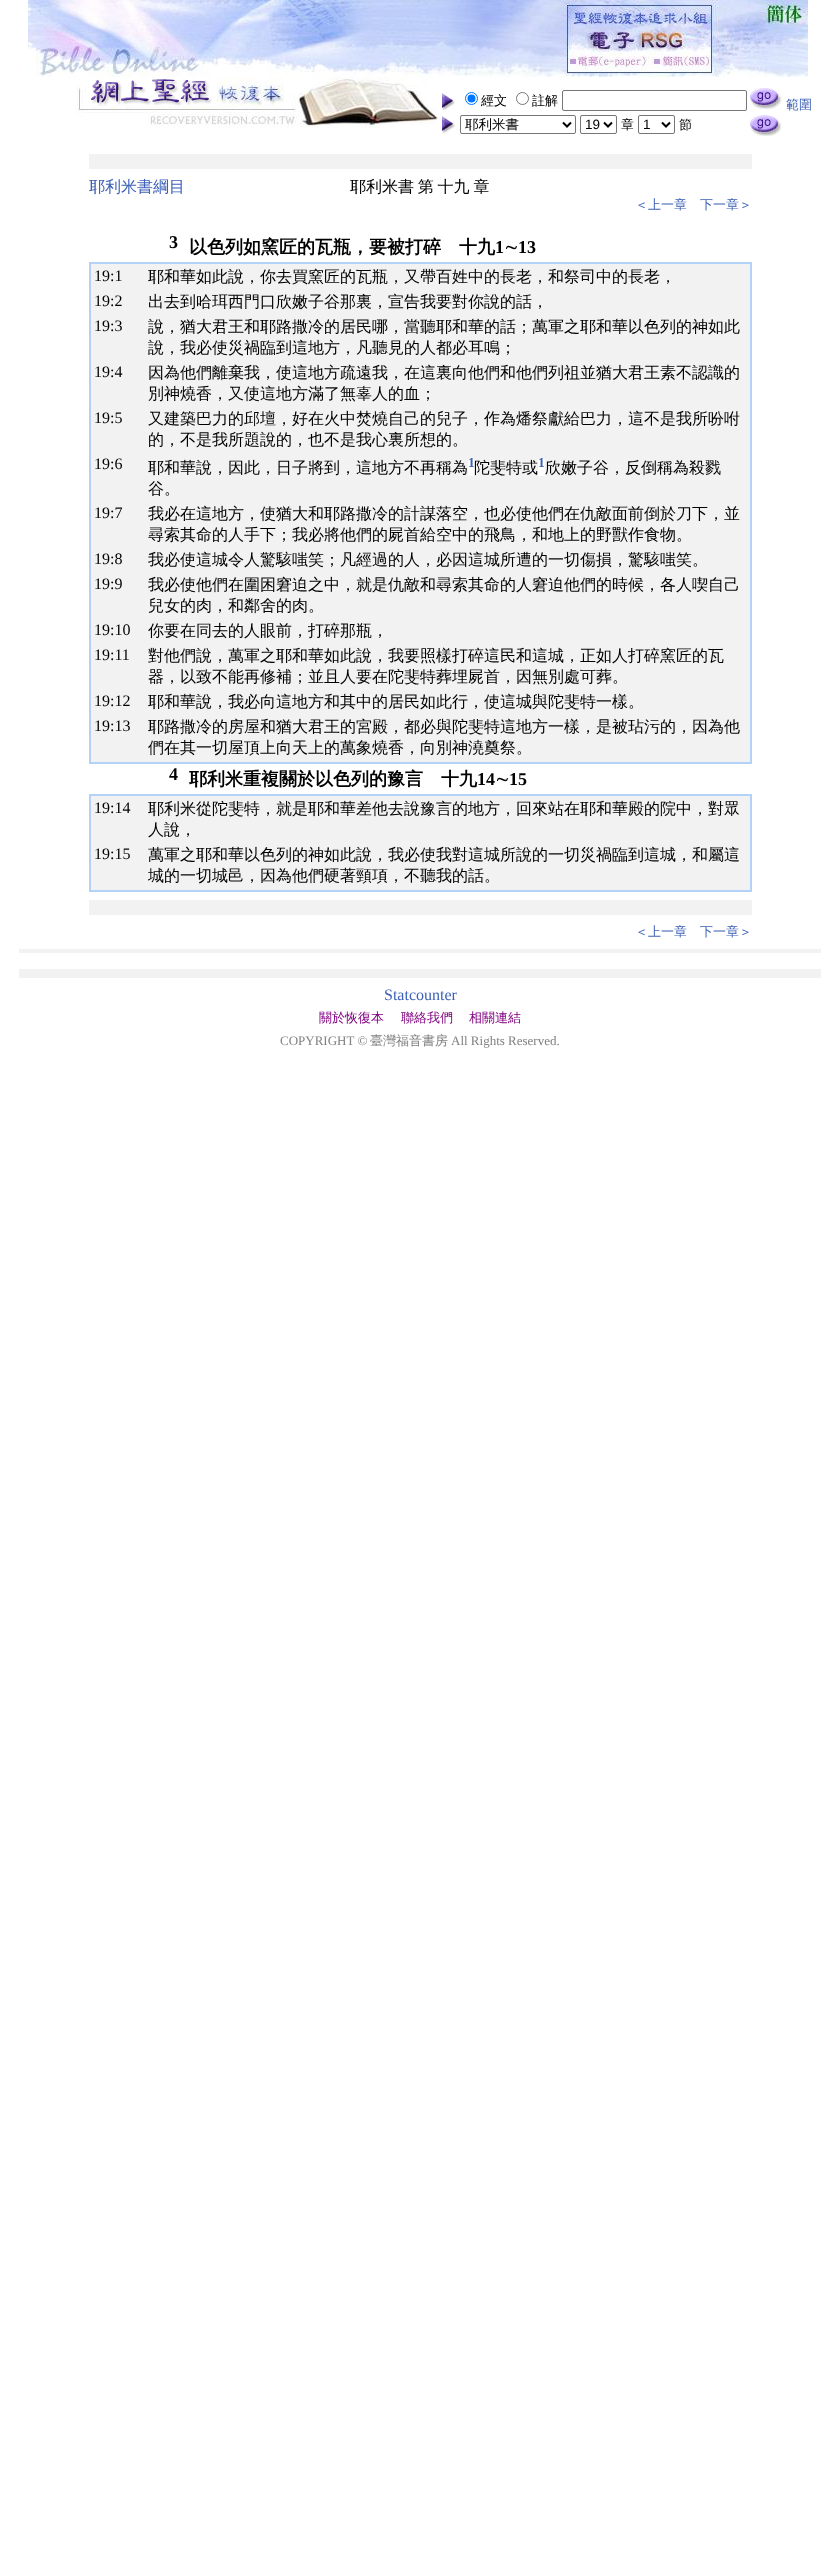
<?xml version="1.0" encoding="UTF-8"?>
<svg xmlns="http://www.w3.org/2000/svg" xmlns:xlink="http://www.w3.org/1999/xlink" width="840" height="2563">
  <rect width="100%" height="100%" fill="#ffffff" />
  <image x="28" y="0" width="411" height="77" xlink:href="image1.png" />
  <image x="439" y="0" width="121" height="77" xlink:href="image2.png" />
  <image x="560" y="0" width="201" height="77" xlink:href="image3.png" />
  <image x="761" y="0" width="47" height="77" xlink:href="image4.png" />
  <image x="76" y="77" width="362" height="51" xlink:href="image5.png" />
  <image x="442" y="93" width="13" height="18" xlink:href="image6.png" />
  <circle cx="471.5" cy="98.5" r="6" fill="none" stroke="#0075ff" />
  <circle cx="471.5" cy="98.5" r="4" fill="#0075ff" />
  <circle cx="522.5" cy="98.5" r="6" fill="none" stroke="#767676" />
  <rect x="562.5" y="90.5" width="184" height="20" rx="1.5" fill="none" stroke="#767676" />
  <image x="750" y="88" width="32" height="21" xlink:href="image7.png" />
  <image x="442" y="116" width="13" height="18" xlink:href="image6.png" />
  <rect x="460.5" y="115.5" width="115" height="18" rx="1.5" fill="none" stroke="#767676" />
  <path d="M 563 122.5 l 4 4 l 4 -4" fill="none" stroke="#000000" stroke-width="2" />
  <rect x="580.5" y="115.5" width="36" height="18" rx="1.5" fill="none" stroke="#767676" />
  <path d="M 604 122.5 l 4 4 l 4 -4" fill="none" stroke="#000000" stroke-width="2" />
  <rect x="638.5" y="115.5" width="36" height="18" rx="1.5" fill="none" stroke="#767676" />
  <path d="M 662 122.5 l 4 4 l 4 -4" fill="none" stroke="#000000" stroke-width="2" />
  <image x="750" y="115" width="32" height="21" xlink:href="image7.png" />
  <rect x="89" y="154" width="663" height="15" fill="#f2f2f2" />
  <rect x="91" y="264" width="659" height="498" fill="#f2f2f2" />
  <rect x="89.5" y="262.5" width="662" height="501" fill="none" stroke="#b4d2f8" />
  <rect x="90.5" y="263.5" width="660" height="499" fill="none" stroke="#b4d2f8" />
  <rect x="468" y="459" width="6" height="17" fill="#ffffff" />
  <rect x="538" y="459" width="7" height="17" fill="#ffffff" />
  <rect x="91" y="796" width="659" height="94" fill="#f2f2f2" />
  <rect x="89.5" y="794.5" width="662" height="97" fill="none" stroke="#b4d2f8" />
  <rect x="90.5" y="795.5" width="660" height="95" fill="none" stroke="#b4d2f8" />
  <rect x="89" y="900" width="663" height="15" fill="#f2f2f2" />
  <rect x="19" y="949" width="802" height="4" fill="#f2f2f2" />
  <rect x="19" y="969" width="802" height="9" fill="#f2f2f2" />
  <text x="481" y="105" style="font-family: WenQuanYi Zen Hei; font-size: 13px; font-weight: 500; fill: #000000">經文</text>
  <text x="532" y="105" style="font-family: WenQuanYi Zen Hei; font-size: 13px; font-weight: 500; fill: #000000">註解</text>
  <text x="786" y="109" style="font-family: WenQuanYi Zen Hei; font-size: 13px; font-weight: 500; fill: #3d61b6">範圍</text>
  <text x="465" y="129" style="font-family: WenQuanYi Zen Hei; font-size: 13.5px; font-weight: 500; fill: #000000">耶利米書</text>
  <text x="585" y="129" style="font-family: Liberation Sans; font-size: 13.5px; fill: #000000">19</text>
  <text x="621" y="129" style="font-family: WenQuanYi Zen Hei; font-size: 13px; font-weight: 500; fill: #000000">章</text>
  <text x="643" y="129" style="font-family: Liberation Sans; font-size: 13.5px; fill: #000000">1</text>
  <text x="679" y="129" style="font-family: WenQuanYi Zen Hei; font-size: 13px; font-weight: 500; fill: #000000">節</text>
  <text x="89" y="192" style="font-family: WenQuanYi Zen Hei; font-size: 16px; font-weight: 500; fill: #3d61b6">耶利米書綱目</text>
  <text x="350" y="192" word-spacing="-1" style="font-family: WenQuanYi Zen Hei; font-size: 16px; font-weight: 500; fill: #000000">耶利米書 第 十九 章</text>
  <text x="635" y="209" style="font-family: WenQuanYi Zen Hei; font-size: 13px; font-weight: 500; fill: #3d61b6">＜上一章</text>
  <text x="700" y="209" style="font-family: WenQuanYi Zen Hei; font-size: 13px; font-weight: 500; fill: #3d61b6">下一章＞</text>
  <text x="169" y="248" style="font-family: Liberation Serif; font-size: 18px; font-weight: bold; fill: #000000">3</text>
  <text x="189" y="253" style="font-family: WenQuanYi Zen Hei; font-size: 18px; font-weight: bold; fill: #000000">以色列如窯匠的瓦瓶，要被打碎　十九</text>
  <text x="495" y="253" style="font-family: Liberation Serif; font-size: 18px; font-weight: bold; fill: #000000">1</text>
  <text x="504" y="253" style="font-family: WenQuanYi Zen Hei; font-size: 18px; font-weight: bold; fill: #000000">∼</text>
  <text x="518" y="253" style="font-family: Liberation Serif; font-size: 18px; font-weight: bold; fill: #000000">13</text>
  <text x="94" y="281" style="font-family: Liberation Serif; font-size: 16px; fill: #000000">19:1</text>
  <text x="148" y="282" style="font-family: WenQuanYi Zen Hei; font-size: 16px; font-weight: 500; fill: #000000">耶和華如此說，你去買窯匠的瓦瓶，又帶百姓中的長老，和祭司中的長老，</text>
  <text x="94" y="306" style="font-family: Liberation Serif; font-size: 16px; fill: #000000">19:2</text>
  <text x="148" y="307" style="font-family: WenQuanYi Zen Hei; font-size: 16px; font-weight: 500; fill: #000000">出去到哈珥西門口欣嫩子谷那裏，宣告我要對你說的話，</text>
  <text x="94" y="331" style="font-family: Liberation Serif; font-size: 16px; fill: #000000">19:3</text>
  <text x="148" y="332" style="font-family: WenQuanYi Zen Hei; font-size: 16px; font-weight: 500; fill: #000000">說，猶大君王和耶路撒冷的居民哪，當聽耶和華的話；萬軍之耶和華以色列的神如此</text>
  <text x="148" y="353" style="font-family: WenQuanYi Zen Hei; font-size: 16px; font-weight: 500; fill: #000000">說，我必使災禍臨到這地方，凡聽見的人都必耳鳴；</text>
  <text x="94" y="377" style="font-family: Liberation Serif; font-size: 16px; fill: #000000">19:4</text>
  <text x="148" y="378" style="font-family: WenQuanYi Zen Hei; font-size: 16px; font-weight: 500; fill: #000000">因為他們離棄我，使這地方疏遠我，在這裏向他們和他們列祖並猶大君王素不認識的</text>
  <text x="148" y="399" style="font-family: WenQuanYi Zen Hei; font-size: 16px; font-weight: 500; fill: #000000">別神燒香，又使這地方滿了無辜人的血；</text>
  <text x="94" y="423" style="font-family: Liberation Serif; font-size: 16px; fill: #000000">19:5</text>
  <text x="148" y="424" style="font-family: WenQuanYi Zen Hei; font-size: 16px; font-weight: 500; fill: #000000">又建築巴力的邱壇，好在火中焚燒自己的兒子，作為燔祭獻給巴力，這不是我所吩咐</text>
  <text x="148" y="445" style="font-family: WenQuanYi Zen Hei; font-size: 16px; font-weight: 500; fill: #000000">的，不是我所題說的，也不是我心裏所想的。</text>
  <text x="94" y="469" style="font-family: Liberation Serif; font-size: 16px; fill: #000000">19:6</text>
  <text x="148" y="473" style="font-family: WenQuanYi Zen Hei; font-size: 16px; font-weight: 500; fill: #000000">耶和華說，因此，日子將到，這地方不再稱為</text>
  <text x="468" y="467" style="font-family: Liberation Serif; font-size: 13.5px; font-weight: bold; fill: #3d61b6">1</text>
  <text x="474" y="473" style="font-family: WenQuanYi Zen Hei; font-size: 16px; font-weight: 500; fill: #000000">陀斐特或</text>
  <text x="538" y="467" style="font-family: Liberation Serif; font-size: 13.5px; font-weight: bold; fill: #3d61b6">1</text>
  <text x="545" y="473" style="font-family: WenQuanYi Zen Hei; font-size: 16px; font-weight: 500; fill: #000000">欣嫩子谷，反倒稱為殺戮</text>
  <text x="148" y="494" style="font-family: WenQuanYi Zen Hei; font-size: 16px; font-weight: 500; fill: #000000">谷。</text>
  <text x="94" y="518" style="font-family: Liberation Serif; font-size: 16px; fill: #000000">19:7</text>
  <text x="148" y="519" style="font-family: WenQuanYi Zen Hei; font-size: 16px; font-weight: 500; fill: #000000">我必在這地方，使猶大和耶路撒冷的計謀落空，也必使他們在仇敵面前倒於刀下，並</text>
  <text x="148" y="540" style="font-family: WenQuanYi Zen Hei; font-size: 16px; font-weight: 500; fill: #000000">尋索其命的人手下；我必將他們的屍首給空中的飛鳥，和地上的野獸作食物。</text>
  <text x="94" y="564" style="font-family: Liberation Serif; font-size: 16px; fill: #000000">19:8</text>
  <text x="148" y="565" style="font-family: WenQuanYi Zen Hei; font-size: 16px; font-weight: 500; fill: #000000">我必使這城令人驚駭嗤笑；凡經過的人，必因這城所遭的一切傷損，驚駭嗤笑。</text>
  <text x="94" y="589" style="font-family: Liberation Serif; font-size: 16px; fill: #000000">19:9</text>
  <text x="148" y="590" style="font-family: WenQuanYi Zen Hei; font-size: 16px; font-weight: 500; fill: #000000">我必使他們在圍困窘迫之中，就是仇敵和尋索其命的人窘迫他們的時候，各人喫自己</text>
  <text x="148" y="611" style="font-family: WenQuanYi Zen Hei; font-size: 16px; font-weight: 500; fill: #000000">兒女的肉，和鄰舍的肉。</text>
  <text x="94" y="635" style="font-family: Liberation Serif; font-size: 16px; fill: #000000">19:10</text>
  <text x="148" y="636" style="font-family: WenQuanYi Zen Hei; font-size: 16px; font-weight: 500; fill: #000000">你要在同去的人眼前，打碎那瓶，</text>
  <text x="94" y="660" style="font-family: Liberation Serif; font-size: 16px; fill: #000000">19:11</text>
  <text x="148" y="661" style="font-family: WenQuanYi Zen Hei; font-size: 16px; font-weight: 500; fill: #000000">對他們說，萬軍之耶和華如此說，我要照樣打碎這民和這城，正如人打碎窯匠的瓦</text>
  <text x="148" y="682" style="font-family: WenQuanYi Zen Hei; font-size: 16px; font-weight: 500; fill: #000000">器，以致不能再修補；並且人要在陀斐特葬埋屍首，因無別處可葬。</text>
  <text x="94" y="706" style="font-family: Liberation Serif; font-size: 16px; fill: #000000">19:12</text>
  <text x="148" y="707" style="font-family: WenQuanYi Zen Hei; font-size: 16px; font-weight: 500; fill: #000000">耶和華說，我必向這地方和其中的居民如此行，使這城與陀斐特一樣。</text>
  <text x="94" y="731" style="font-family: Liberation Serif; font-size: 16px; fill: #000000">19:13</text>
  <text x="148" y="732" style="font-family: WenQuanYi Zen Hei; font-size: 16px; font-weight: 500; fill: #000000">耶路撒冷的房屋和猶大君王的宮殿，都必與陀斐特這地方一樣，是被玷污的，因為他</text>
  <text x="148" y="753" style="font-family: WenQuanYi Zen Hei; font-size: 16px; font-weight: 500; fill: #000000">們在其一切屋頂上向天上的萬象燒香，向別神澆奠祭。</text>
  <text x="169" y="780" style="font-family: Liberation Serif; font-size: 18px; font-weight: bold; fill: #000000">4</text>
  <text x="189" y="785" style="font-family: WenQuanYi Zen Hei; font-size: 18px; font-weight: bold; fill: #000000">耶利米重複關於以色列的豫言　十九</text>
  <text x="477" y="785" style="font-family: Liberation Serif; font-size: 18px; font-weight: bold; fill: #000000">14</text>
  <text x="495" y="785" style="font-family: WenQuanYi Zen Hei; font-size: 18px; font-weight: bold; fill: #000000">∼</text>
  <text x="509" y="785" style="font-family: Liberation Serif; font-size: 18px; font-weight: bold; fill: #000000">15</text>
  <text x="94" y="813" style="font-family: Liberation Serif; font-size: 16px; fill: #000000">19:14</text>
  <text x="148" y="814" style="font-family: WenQuanYi Zen Hei; font-size: 16px; font-weight: 500; fill: #000000">耶利米從陀斐特，就是耶和華差他去說豫言的地方，回來站在耶和華殿的院中，對眾</text>
  <text x="148" y="835" style="font-family: WenQuanYi Zen Hei; font-size: 16px; font-weight: 500; fill: #000000">人說，</text>
  <text x="94" y="859" style="font-family: Liberation Serif; font-size: 16px; fill: #000000">19:15</text>
  <text x="148" y="860" style="font-family: WenQuanYi Zen Hei; font-size: 16px; font-weight: 500; fill: #000000">萬軍之耶和華以色列的神如此說，我必使我對這城所說的一切災禍臨到這城，和屬這</text>
  <text x="148" y="881" style="font-family: WenQuanYi Zen Hei; font-size: 16px; font-weight: 500; fill: #000000">城的一切城邑，因為他們硬著頸項，不聽我的話。</text>
  <text x="635" y="936" style="font-family: WenQuanYi Zen Hei; font-size: 13px; font-weight: 500; fill: #3d61b6">＜上一章</text>
  <text x="700" y="936" style="font-family: WenQuanYi Zen Hei; font-size: 13px; font-weight: 500; fill: #3d61b6">下一章＞</text>
  <text x="384" y="1000" style="font-family: Liberation Serif; font-size: 16px; fill: #3d61b6">Statcounter</text>
  <text x="319" y="1022" style="font-family: WenQuanYi Zen Hei; font-size: 13px; font-weight: 500; fill: #800080">關於恢復本</text>
  <text x="401" y="1022" style="font-family: WenQuanYi Zen Hei; font-size: 13px; font-weight: 500; fill: #800080">聯絡我們</text>
  <text x="469" y="1022" style="font-family: WenQuanYi Zen Hei; font-size: 13px; font-weight: 500; fill: #800080">相關連結</text>
  <text x="280" y="1045" style="font-family: Liberation Serif; font-size: 13px; fill: #808080">COPYRIGHT ©</text>
  <text x="370" y="1045" style="font-family: WenQuanYi Zen Hei; font-size: 13px; font-weight: 500; fill: #808080">臺灣福音書房</text>
  <text x="451" y="1045" style="font-family: Liberation Serif; font-size: 13px; fill: #808080">All Rights Reserved.</text>
</svg>
